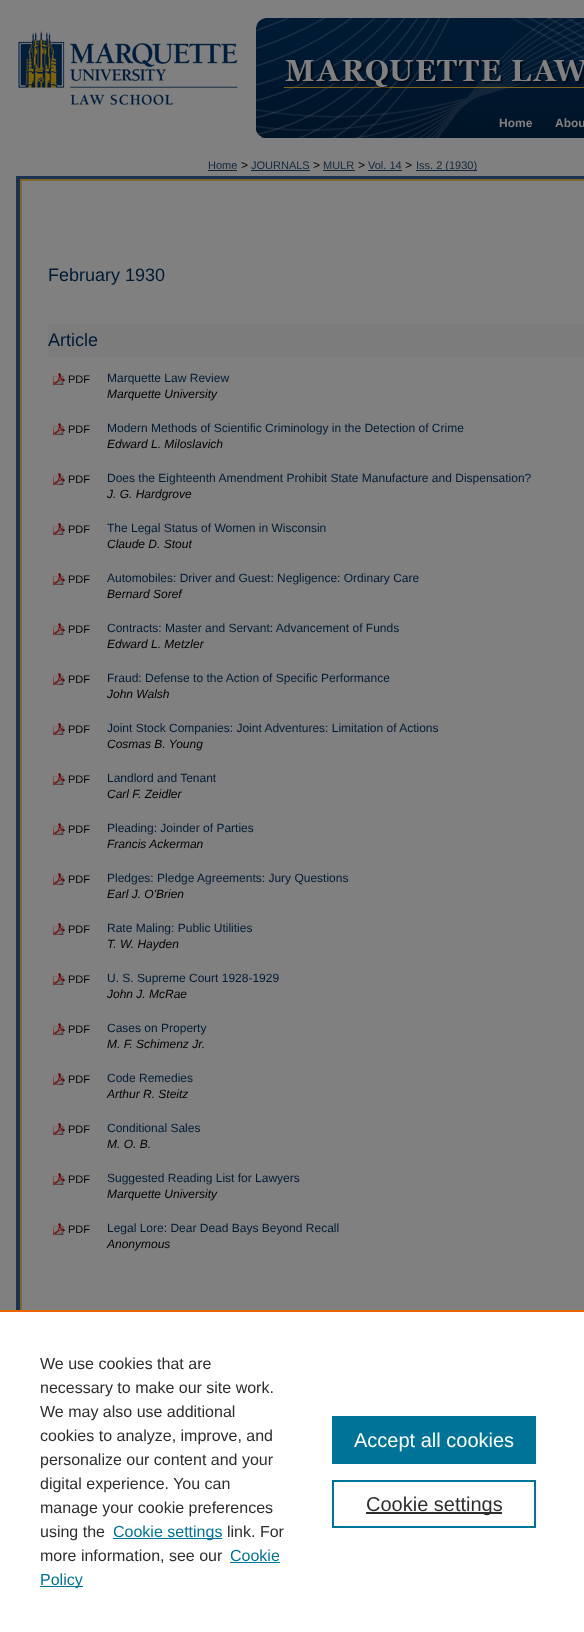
<?xml version="1.0" encoding="UTF-8"?>
<svg xmlns="http://www.w3.org/2000/svg" xmlns:xlink="http://www.w3.org/1999/xlink" width="584" height="1632">
  <rect width="100%" height="100%" fill="#ffffff" />
  <rect x="8" y="8" width="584" height="1395" fill="none" stroke="#808080" stroke-width="16" />
  <rect x="16" y="16" width="568" height="160" fill="#808080" />
  <image x="18" y="31" width="220" height="74" xlink:href="image1.png" />
  <image x="256" y="18" width="328" height="120" xlink:href="image2.png" />
  <image x="16" y="179" width="568" height="1131" xlink:href="image3.png" />
  <rect x="16" y="176" width="568" height="3" fill="#1b3250" />
  <rect x="22" y="179" width="562" height="2" fill="#7c682b" />
  <rect x="208" y="170" width="29" height="1" fill="#13273b" />
  <rect x="251" y="170" width="59" height="1" fill="#13273b" />
  <rect x="323" y="170" width="32" height="1" fill="#13273b" />
  <rect x="368" y="170" width="34" height="1" fill="#13273b" />
  <rect x="416" y="170" width="61" height="1" fill="#13273b" />
  <rect x="48" y="324" width="536" height="33" fill="#7c7c7c" />
  <image x="53" y="373" width="12" height="12" xlink:href="image4.png" />
  <image x="53" y="423" width="12" height="12" xlink:href="image4.png" />
  <image x="53" y="473" width="12" height="12" xlink:href="image4.png" />
  <image x="53" y="523" width="12" height="12" xlink:href="image4.png" />
  <image x="53" y="573" width="12" height="12" xlink:href="image4.png" />
  <image x="53" y="623" width="12" height="12" xlink:href="image4.png" />
  <image x="53" y="673" width="12" height="12" xlink:href="image4.png" />
  <image x="53" y="723" width="12" height="12" xlink:href="image4.png" />
  <image x="53" y="773" width="12" height="12" xlink:href="image4.png" />
  <image x="53" y="823" width="12" height="12" xlink:href="image4.png" />
  <image x="53" y="873" width="12" height="12" xlink:href="image4.png" />
  <image x="53" y="923" width="12" height="12" xlink:href="image4.png" />
  <image x="53" y="973" width="12" height="12" xlink:href="image4.png" />
  <image x="53" y="1023" width="12" height="12" xlink:href="image4.png" />
  <image x="53" y="1073" width="12" height="12" xlink:href="image4.png" />
  <image x="53" y="1123" width="12" height="12" xlink:href="image4.png" />
  <image x="53" y="1173" width="12" height="12" xlink:href="image4.png" />
  <image x="53" y="1223" width="12" height="12" xlink:href="image4.png" />
  <rect y="1312" width="584" height="99" fill="#ffffff" />
  <rect y="1310" width="584" height="2" fill="#eb6500" />
  <rect x="113" y="1538" width="109" height="1" fill="#007398" />
  <rect x="230" y="1562" width="50" height="1" fill="#007398" />
  <rect x="40" y="1586" width="43" height="1" fill="#007398" />
  <rect x="332" y="1416" width="204" height="48" fill="#007398" />
  <rect x="333" y="1481" width="202" height="46" fill="none" stroke="#007398" stroke-width="2" />
  <rect x="366" y="1512" width="136" height="2" fill="#2e2e2e" />
  <text x="499" y="127" style="font-family: Liberation Sans; font-size: 12px; font-weight: bold; fill: #808080">Home</text>
  <text x="555" y="127" style="font-family: Liberation Sans; font-size: 12px; font-weight: bold; fill: #808080">Abou</text>
  <text x="208" y="169" style="font-family: Liberation Sans; font-size: 11px; fill: #13273b">Home</text>
  <text x="241" y="169" style="font-family: Liberation Sans; font-size: 12px; fill: #000000">&gt;</text>
  <text x="251" y="169" style="font-family: Liberation Sans; font-size: 11px; fill: #13273b">JOURNALS</text>
  <text x="313" y="169" style="font-family: Liberation Sans; font-size: 12px; fill: #000000">&gt;</text>
  <text x="323" y="169" style="font-family: Liberation Sans; font-size: 11px; fill: #13273b">MULR</text>
  <text x="358" y="169" style="font-family: Liberation Sans; font-size: 12px; fill: #000000">&gt;</text>
  <text x="368" y="169" style="font-family: Liberation Sans; font-size: 11px; fill: #13273b">Vol. 14</text>
  <text x="405" y="169" style="font-family: Liberation Sans; font-size: 12px; fill: #000000">&gt;</text>
  <text x="416" y="169" style="font-family: Liberation Sans; font-size: 11px; fill: #13273b">Iss. 2 (1930)</text>
  <text x="48" y="281" style="font-family: Liberation Sans; font-size: 18px; fill: #001a33">February 1930</text>
  <text x="48" y="346" style="font-family: Liberation Sans; font-size: 18px; fill: #001a33">Article</text>
  <text x="68" y="383" style="font-family: Liberation Sans; font-size: 11px; fill: #000000">PDF</text>
  <text x="107" y="382" style="font-family: Liberation Sans; font-size: 12px; fill: #001a33">Marquette Law Review</text>
  <text x="107" y="398" style="font-family: Liberation Sans; font-size: 12px; font-style: italic; fill: #000000">Marquette University</text>
  <text x="68" y="433" style="font-family: Liberation Sans; font-size: 11px; fill: #000000">PDF</text>
  <text x="107" y="432" style="font-family: Liberation Sans; font-size: 12px; fill: #001a33">Modern Methods of Scientific Criminology in the Detection of Crime</text>
  <text x="107" y="448" style="font-family: Liberation Sans; font-size: 12px; font-style: italic; fill: #000000">Edward L. Miloslavich</text>
  <text x="68" y="483" style="font-family: Liberation Sans; font-size: 11px; fill: #000000">PDF</text>
  <text x="107" y="482" style="font-family: Liberation Sans; font-size: 12px; fill: #001a33">Does the Eighteenth Amendment Prohibit State Manufacture and Dispensation?</text>
  <text x="107" y="498" style="font-family: Liberation Sans; font-size: 12px; font-style: italic; fill: #000000">J. G. Hardgrove</text>
  <text x="68" y="533" style="font-family: Liberation Sans; font-size: 11px; fill: #000000">PDF</text>
  <text x="107" y="532" style="font-family: Liberation Sans; font-size: 12px; fill: #001a33">The Legal Status of Women in Wisconsin</text>
  <text x="107" y="548" style="font-family: Liberation Sans; font-size: 12px; font-style: italic; fill: #000000">Claude D. Stout</text>
  <text x="68" y="583" style="font-family: Liberation Sans; font-size: 11px; fill: #000000">PDF</text>
  <text x="107" y="582" style="font-family: Liberation Sans; font-size: 12px; fill: #001a33">Automobiles: Driver and Guest: Negligence: Ordinary Care</text>
  <text x="107" y="598" style="font-family: Liberation Sans; font-size: 12px; font-style: italic; fill: #000000">Bernard Soref</text>
  <text x="68" y="633" style="font-family: Liberation Sans; font-size: 11px; fill: #000000">PDF</text>
  <text x="107" y="632" style="font-family: Liberation Sans; font-size: 12px; fill: #001a33">Contracts: Master and Servant: Advancement of Funds</text>
  <text x="107" y="648" style="font-family: Liberation Sans; font-size: 12px; font-style: italic; fill: #000000">Edward L. Metzler</text>
  <text x="68" y="683" style="font-family: Liberation Sans; font-size: 11px; fill: #000000">PDF</text>
  <text x="107" y="682" style="font-family: Liberation Sans; font-size: 12px; fill: #001a33">Fraud: Defense to the Action of Specific Performance</text>
  <text x="107" y="698" style="font-family: Liberation Sans; font-size: 12px; font-style: italic; fill: #000000">John Walsh</text>
  <text x="68" y="733" style="font-family: Liberation Sans; font-size: 11px; fill: #000000">PDF</text>
  <text x="107" y="732" style="font-family: Liberation Sans; font-size: 12px; fill: #001a33">Joint Stock Companies: Joint Adventures: Limitation of Actions</text>
  <text x="107" y="748" style="font-family: Liberation Sans; font-size: 12px; font-style: italic; fill: #000000">Cosmas B. Young</text>
  <text x="68" y="783" style="font-family: Liberation Sans; font-size: 11px; fill: #000000">PDF</text>
  <text x="107" y="782" style="font-family: Liberation Sans; font-size: 12px; fill: #001a33">Landlord and Tenant</text>
  <text x="107" y="798" style="font-family: Liberation Sans; font-size: 12px; font-style: italic; fill: #000000">Carl F. Zeidler</text>
  <text x="68" y="833" style="font-family: Liberation Sans; font-size: 11px; fill: #000000">PDF</text>
  <text x="107" y="832" style="font-family: Liberation Sans; font-size: 12px; fill: #001a33">Pleading: Joinder of Parties</text>
  <text x="107" y="848" style="font-family: Liberation Sans; font-size: 12px; font-style: italic; fill: #000000">Francis Ackerman</text>
  <text x="68" y="883" style="font-family: Liberation Sans; font-size: 11px; fill: #000000">PDF</text>
  <text x="107" y="882" style="font-family: Liberation Sans; font-size: 12px; fill: #001a33">Pledges: Pledge Agreements: Jury Questions</text>
  <text x="107" y="898" style="font-family: Liberation Sans; font-size: 12px; font-style: italic; fill: #000000">Earl J. O'Brien</text>
  <text x="68" y="933" style="font-family: Liberation Sans; font-size: 11px; fill: #000000">PDF</text>
  <text x="107" y="932" style="font-family: Liberation Sans; font-size: 12px; fill: #001a33">Rate Maling: Public Utilities</text>
  <text x="107" y="948" style="font-family: Liberation Sans; font-size: 12px; font-style: italic; fill: #000000">T. W. Hayden</text>
  <text x="68" y="983" style="font-family: Liberation Sans; font-size: 11px; fill: #000000">PDF</text>
  <text x="107" y="982" style="font-family: Liberation Sans; font-size: 12px; fill: #001a33">U. S. Supreme Court 1928-1929</text>
  <text x="107" y="998" style="font-family: Liberation Sans; font-size: 12px; font-style: italic; fill: #000000">John J. McRae</text>
  <text x="68" y="1033" style="font-family: Liberation Sans; font-size: 11px; fill: #000000">PDF</text>
  <text x="107" y="1032" style="font-family: Liberation Sans; font-size: 12px; fill: #001a33">Cases on Property</text>
  <text x="107" y="1048" style="font-family: Liberation Sans; font-size: 12px; font-style: italic; fill: #000000">M. F. Schimenz Jr.</text>
  <text x="68" y="1083" style="font-family: Liberation Sans; font-size: 11px; fill: #000000">PDF</text>
  <text x="107" y="1082" style="font-family: Liberation Sans; font-size: 12px; fill: #001a33">Code Remedies</text>
  <text x="107" y="1098" style="font-family: Liberation Sans; font-size: 12px; font-style: italic; fill: #000000">Arthur R. Steitz</text>
  <text x="68" y="1133" style="font-family: Liberation Sans; font-size: 11px; fill: #000000">PDF</text>
  <text x="107" y="1132" style="font-family: Liberation Sans; font-size: 12px; fill: #001a33">Conditional Sales</text>
  <text x="107" y="1148" style="font-family: Liberation Sans; font-size: 12px; font-style: italic; fill: #000000">M. O. B.</text>
  <text x="68" y="1183" style="font-family: Liberation Sans; font-size: 11px; fill: #000000">PDF</text>
  <text x="107" y="1182" style="font-family: Liberation Sans; font-size: 12px; fill: #001a33">Suggested Reading List for Lawyers</text>
  <text x="107" y="1198" style="font-family: Liberation Sans; font-size: 12px; font-style: italic; fill: #000000">Marquette University</text>
  <text x="68" y="1233" style="font-family: Liberation Sans; font-size: 11px; fill: #000000">PDF</text>
  <text x="107" y="1232" style="font-family: Liberation Sans; font-size: 12px; fill: #001a33">Legal Lore: Dear Dead Bays Beyond Recall</text>
  <text x="107" y="1248" style="font-family: Liberation Sans; font-size: 12px; font-style: italic; fill: #000000">Anonymous</text>
  <text x="40" y="1369" style="font-family: Liberation Sans; font-size: 16px; fill: #2e2e2e">We use cookies that are</text>
  <text x="40" y="1393" style="font-family: Liberation Sans; font-size: 16px; fill: #2e2e2e">necessary to make our site work.</text>
  <text x="40" y="1417" style="font-family: Liberation Sans; font-size: 16px; fill: #2e2e2e">We may also use additional</text>
  <text x="40" y="1441" style="font-family: Liberation Sans; font-size: 16px; fill: #2e2e2e">cookies to analyze, improve, and</text>
  <text x="40" y="1465" style="font-family: Liberation Sans; font-size: 16px; fill: #2e2e2e">personalize our content and your</text>
  <text x="40" y="1489" style="font-family: Liberation Sans; font-size: 16px; fill: #2e2e2e">digital experience. You can</text>
  <text x="40" y="1513" style="font-family: Liberation Sans; font-size: 16px; fill: #2e2e2e">manage your cookie preferences</text>
  <text x="40" y="1537" style="font-family: Liberation Sans; font-size: 16px; fill: #2e2e2e">using the</text>
  <text x="113" y="1537" style="font-family: Liberation Sans; font-size: 16px; fill: #007398">Cookie settings</text>
  <text x="227" y="1537" style="font-family: Liberation Sans; font-size: 16px; fill: #2e2e2e">link. For</text>
  <text x="40" y="1561" style="font-family: Liberation Sans; font-size: 16px; fill: #2e2e2e">more information, see our</text>
  <text x="230" y="1561" style="font-family: Liberation Sans; font-size: 16px; fill: #007398">Cookie</text>
  <text x="40" y="1585" style="font-family: Liberation Sans; font-size: 16px; fill: #007398">Policy</text>
  <text x="354" y="1447" style="font-family: Liberation Sans; font-size: 20px; fill: #ffffff">Accept all cookies</text>
  <text x="366" y="1511" style="font-family: Liberation Sans; font-size: 20px; fill: #2e2e2e">Cookie settings</text>
</svg>
